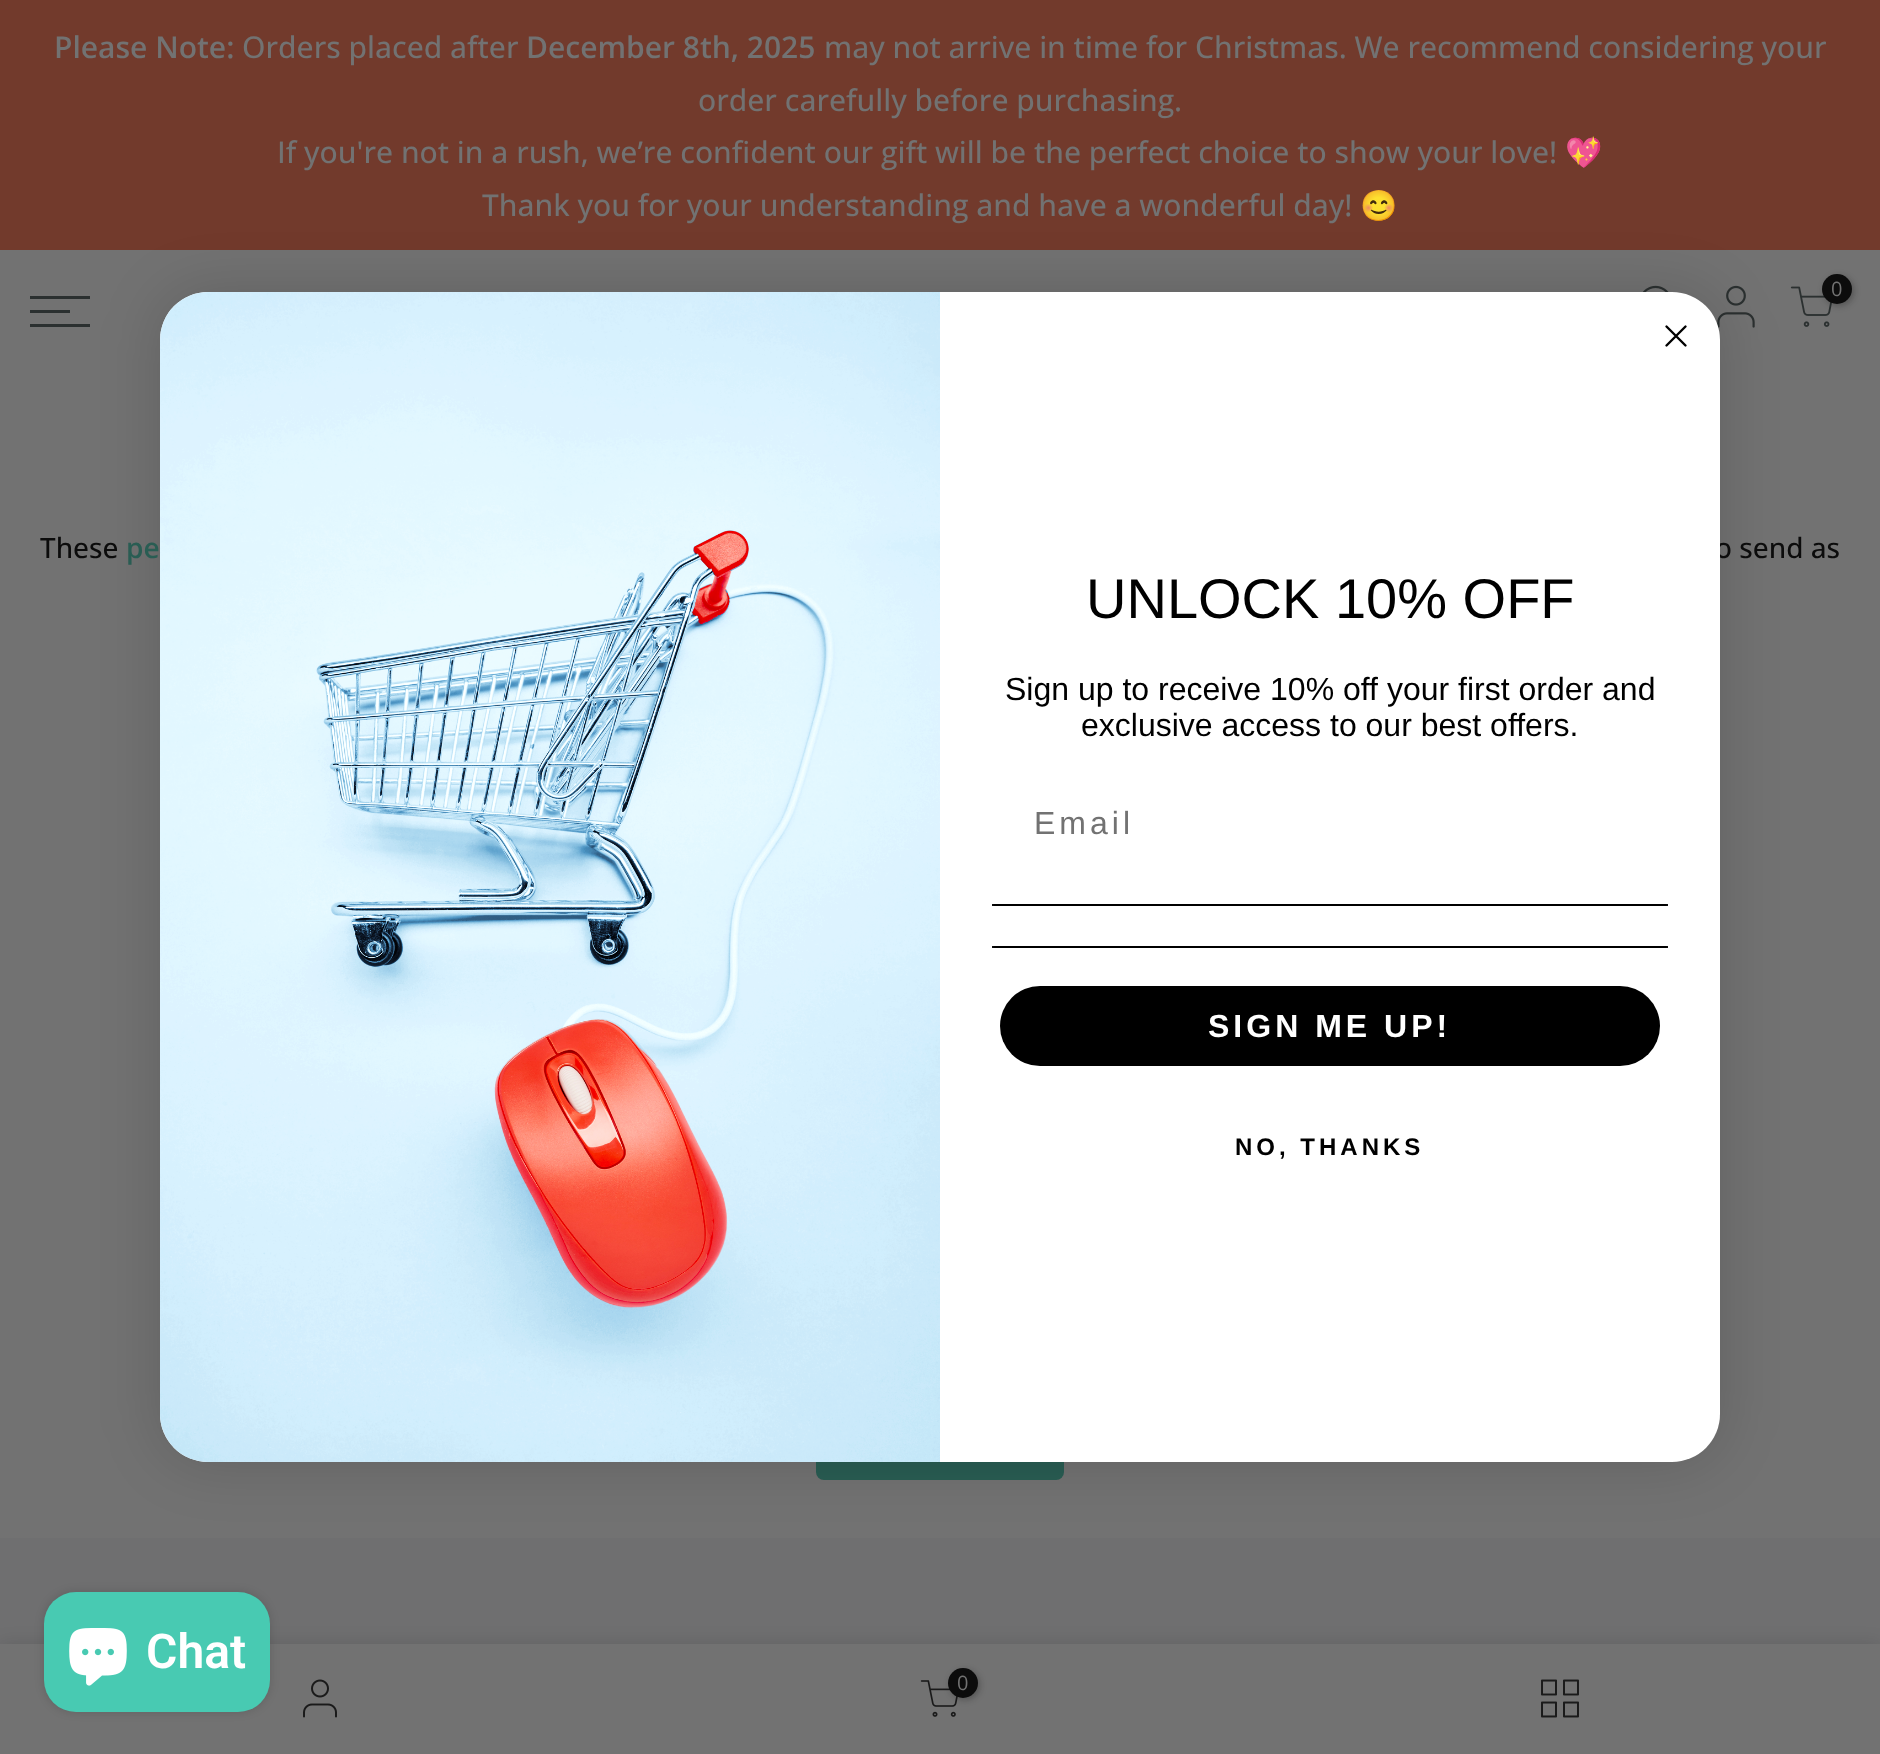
<?xml version="1.0" encoding="UTF-8"?>
<svg xmlns="http://www.w3.org/2000/svg" xmlns:xlink="http://www.w3.org/1999/xlink" width="1880" height="1754">
  <rect width="100%" height="100%" fill="#727272" />
  <rect width="1880" height="250" fill="#723a2c" />
  <image x="1642" y="285" width="27" height="7" xlink:href="image1.png" />
  <image x="1717" y="285" width="38" height="43" xlink:href="image2.png" />
  <image x="1790" y="286" width="42" height="41" xlink:href="image3.png" />
  <rect x="1824" y="276" width="30" height="30" rx="15" fill="#0c0c0c" fill-opacity="0.3" filter="blur(3px)" />
  <circle cx="1837" cy="289" r="15" fill="#0c0c0c" />
  <rect x="30" y="296" width="60" height="3" fill="#2b3030" />
  <rect x="30" y="310" width="40" height="3" fill="#2b3030" />
  <rect x="30" y="324" width="60" height="3" fill="#2b3030" />
  <rect x="816" y="1422" width="248" height="58" rx="8" fill="#295d53" />
  <rect y="1538" width="1880" height="106" fill="#6f6f70" />
  <rect x="160" y="292" width="1560" height="1170" rx="48" fill="#000000" fill-opacity="0.15" filter="blur(30px)" />
  <rect y="1644" width="1880" height="110" fill="#0c0c0c" fill-opacity="0.12" filter="blur(9px)" />
  <rect y="1644" width="1880" height="110" fill="#727272" />
  <rect x="44" y="1592" width="226" height="120" rx="32" fill="#000000" fill-opacity="0.15" filter="blur(5px)" />
  <rect x="44" y="1592" width="226" height="120" rx="32" fill="#48cab2" />
  <image x="69" y="1628" width="58" height="58" xlink:href="image6.png" />
  <image x="303" y="1679" width="34" height="39" xlink:href="image7.png" />
  <image x="920" y="1680" width="38" height="37" xlink:href="image8.png" />
  <rect x="950" y="1670" width="30" height="30" rx="15" fill="#0c0c0c" fill-opacity="0.3" filter="blur(3px)" />
  <circle cx="963" cy="1683" r="15" fill="#0c0c0c" />
  <image x="1541" y="1679" width="38" height="39" xlink:href="image9.png" />
  <text x="54" y="58" style="font-family: Open Sans; font-size: 30px; font-weight: 600; fill: #727272">Please Note:</text>
  <text x="242" y="58" style="font-family: Open Sans; font-size: 30px; font-weight: 500; fill: #727272">Orders placed after</text>
  <text x="526" y="58" style="font-family: Open Sans; font-size: 30px; font-weight: 600; fill: #727272">December 8th, 2025</text>
  <text x="824" y="58" style="font-family: Open Sans; font-size: 30px; font-weight: 500; fill: #727272">may not arrive in time for Christmas. We recommend considering your</text>
  <text x="698" y="111" style="font-family: Open Sans; font-size: 30px; font-weight: 500; fill: #727272">order carefully before purchasing.</text>
  <text x="277" y="163" style="font-family: Open Sans; font-size: 30px; font-weight: 500; fill: #727272">If you're not in a rush, we’re confident our gift will be the perfect choice to show your love!</text>
  <text x="1565" y="163" style="font-family: Noto Color Emoji; font-size: 30px; fill: #727272">💖</text>
  <text x="482" y="216" style="font-family: Open Sans; font-size: 30px; font-weight: 500; fill: #727272">Thank you for your understanding and have a wonderful day!</text>
  <text x="1360" y="216" style="font-family: Noto Color Emoji; font-size: 30px; fill: #727272">😊</text>
  <text x="1831" y="296" style="font-family: Open Sans; font-size: 20px; fill: #727272">0</text>
  <text x="40" y="558" style="font-family: Open Sans; font-size: 28px; font-weight: 500; fill: #0c0c0c">These</text>
  <text x="126" y="558" style="font-family: Open Sans; font-size: 28px; font-weight: 600; fill: #295d53">pe</text>
  <text x="1715" y="558" style="font-family: Open Sans; font-size: 28px; font-weight: 500; fill: #0c0c0c">o send as</text>
  <rect x="160" y="292" width="1560" height="1170" rx="48" fill="#ffffff" />
  <path d="M 1666.5 326.5 l 19 19 m -19 0 l 19 -19 z" fill="none" stroke="#000000" stroke-width="2.4" stroke-linecap="round" stroke-linejoin="round" />
  <image x="160" y="292" width="780" height="1170" xlink:href="image4.png" />
  <text x="1086" y="618" style="font-family: Liberation Sans; font-size: 56px; fill: #000000">UNLOCK 10% OFF</text>
  <text x="1005" y="700" style="font-family: Liberation Sans; font-size: 32px; fill: #000000">Sign up to receive 10% off your first order and</text>
  <text x="1081" y="736" style="font-family: Liberation Sans; font-size: 32px; fill: #000000">exclusive access to our best offers.</text>
  <text x="1034" y="834" style="font-family: Liberation Sans; font-size: 32px; letter-spacing: 4px; fill: #727272">Email</text>
  <image x="992" y="904" width="676" height="2" xlink:href="image5.png" />
  <image x="992" y="946" width="676" height="2" xlink:href="image5.png" />
  <rect x="1000" y="986" width="660" height="80" rx="40" fill="#000000" />
  <text x="1208" y="1037" style="font-family: Liberation Sans; font-size: 32px; font-weight: bold; letter-spacing: 4px; fill: #ffffff">SIGN ME UP!</text>
  <text x="1235" y="1155" style="font-family: Liberation Sans; font-size: 24px; font-weight: bold; letter-spacing: 4px; fill: #000000">NO, THANKS</text>
  <text x="146" y="1668" style="font-family: Roboto; font-size: 48px; font-weight: 600; fill: #ffffff">Chat</text>
  <text x="957" y="1690" style="font-family: Open Sans; font-size: 20px; fill: #727272">0</text>
</svg>
